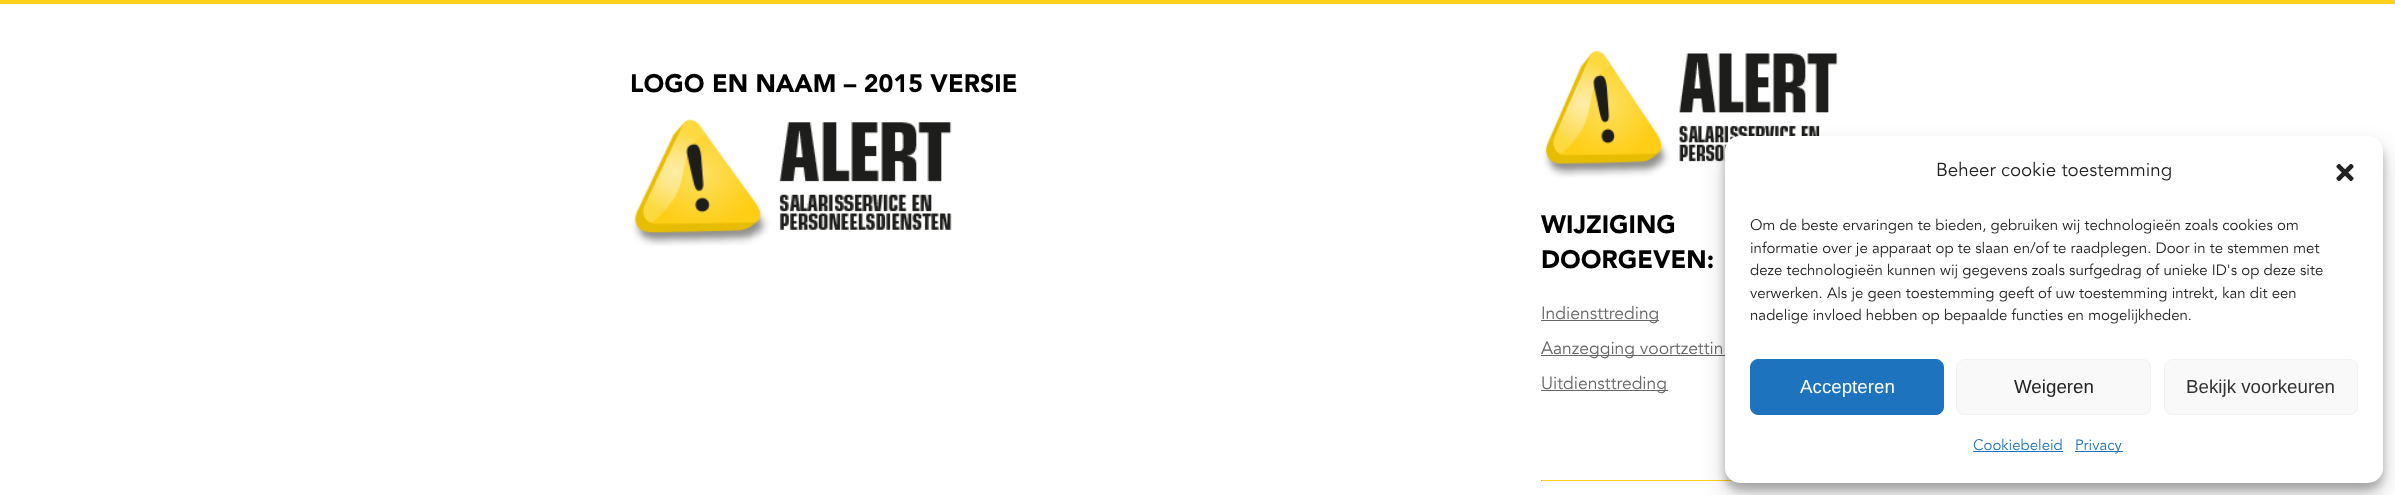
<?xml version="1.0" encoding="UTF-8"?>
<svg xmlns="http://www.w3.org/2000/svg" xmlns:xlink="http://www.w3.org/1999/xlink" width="2395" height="495">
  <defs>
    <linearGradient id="g1" gradientUnits="userSpaceOnUse" x1="1198" y1="-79" x2="1198" y2="3.8"><stop offset="0" stop-color="#fde995" /><stop offset="1" stop-color="#fecf19" /></linearGradient>
  </defs>
  <rect width="100%" height="100%" fill="#ffffff" />
  <rect width="2395" height="4" fill="url(#g1)" />
  <image x="632" y="119" width="320" height="127" xlink:href="image1.png" />
  <image x="1543" y="51" width="295" height="127" xlink:href="image2.png" />
  <rect x="1541" y="320" width="118" height="1" fill="#666666" />
  <rect x="1541" y="355" width="184" height="1" fill="#666666" />
  <rect x="1541" y="390" width="127" height="1" fill="#666666" />
  <rect x="1541" y="480" width="192" height="1" fill="#fece17" />
  <rect x="1541" y="480" width="1" height="1" fill="#9f9f9f" />
  <rect x="1725" y="144" width="658" height="346" rx="15" fill="#000000" fill-opacity="0.23" filter="blur(4px)" />
  <rect x="1725" y="149" width="658" height="346" rx="15" fill="#000000" fill-opacity="0.19" filter="blur(12.5px)" />
  <rect x="1725" y="136" width="658" height="347" rx="15" fill="#ffffff" />
  <image x="2336" y="163" width="18" height="18" xlink:href="image3.png" />
  <rect x="1750.5" y="359.5" width="193" height="55" rx="7.5" fill="#1e73be" stroke="#1e73be" />
  <rect x="1956.5" y="359.5" width="194" height="55" rx="7.5" fill="#f9f9f9" stroke="#f2f2f2" />
  <rect x="2164.5" y="359.5" width="193" height="55" rx="7.5" fill="#f9f9f9" stroke="#f2f2f2" />
  <rect x="1973" y="451" width="90" height="1" fill="#1e73be" />
  <rect x="2075" y="451" width="48" height="1" fill="#1e73be" />
  <text x="630" y="92" style="font-family: Avenir; font-size: 25px; font-weight: 900; fill: #000000">LOGO EN NAAM – 2015 VERSIE</text>
  <text x="1541" y="233" style="font-family: Avenir; font-size: 25px; font-weight: 900; fill: #000000">WIJZIGING</text>
  <text x="1541" y="268" style="font-family: Avenir; font-size: 25px; font-weight: 900; fill: #000000">DOORGEVEN:</text>
  <text x="1541" y="319" style="font-family: Avenir; font-size: 17.5px; fill: #666666">Indiensttreding</text>
  <text x="1541" y="354" style="font-family: Avenir; font-size: 17.5px; fill: #666666">Aanzegging voortzettin</text>
  <text x="1541" y="389" style="font-family: Avenir; font-size: 17.5px; fill: #666666">Uitdiensttreding</text>
  <text x="1936" y="176" style="font-family: Avenir; font-size: 18.75px; fill: #222222">Beheer cookie toestemming</text>
  <text x="1750" y="230" style="font-family: Avenir; font-size: 15px; fill: #222222">Om de beste ervaringen te bieden, gebruiken wij technologieën zoals cookies om</text>
  <text x="1750" y="253" style="font-family: Avenir; font-size: 15px; fill: #222222">informatie over je apparaat op te slaan en/of te raadplegen. Door in te stemmen met</text>
  <text x="1750" y="275" style="font-family: Avenir; font-size: 15px; fill: #222222">deze technologieën kunnen wij gegevens zoals surfgedrag of unieke ID's op deze site</text>
  <text x="1750" y="298" style="font-family: Avenir; font-size: 15px; fill: #222222">verwerken. Als je geen toestemming geeft of uw toestemming intrekt, kan dit een</text>
  <text x="1750" y="320" style="font-family: Avenir; font-size: 15px; fill: #222222">nadelige invloed hebben op bepaalde functies en mogelijkheden.</text>
  <text x="1800" y="393" style="font-family: Liberation Sans; font-size: 18.75px; fill: #ffffff">Accepteren</text>
  <text x="2014" y="393" style="font-family: Liberation Sans; font-size: 18.75px; fill: #222222">Weigeren</text>
  <text x="2186" y="393" style="font-family: Liberation Sans; font-size: 18.75px; fill: #333333">Bekijk voorkeuren</text>
  <text x="1973" y="450" style="font-family: Avenir; font-size: 15px; fill: #1e73be">Cookiebeleid</text>
  <text x="2075" y="450" style="font-family: Avenir; font-size: 15px; fill: #1e73be">Privacy</text>
</svg>
